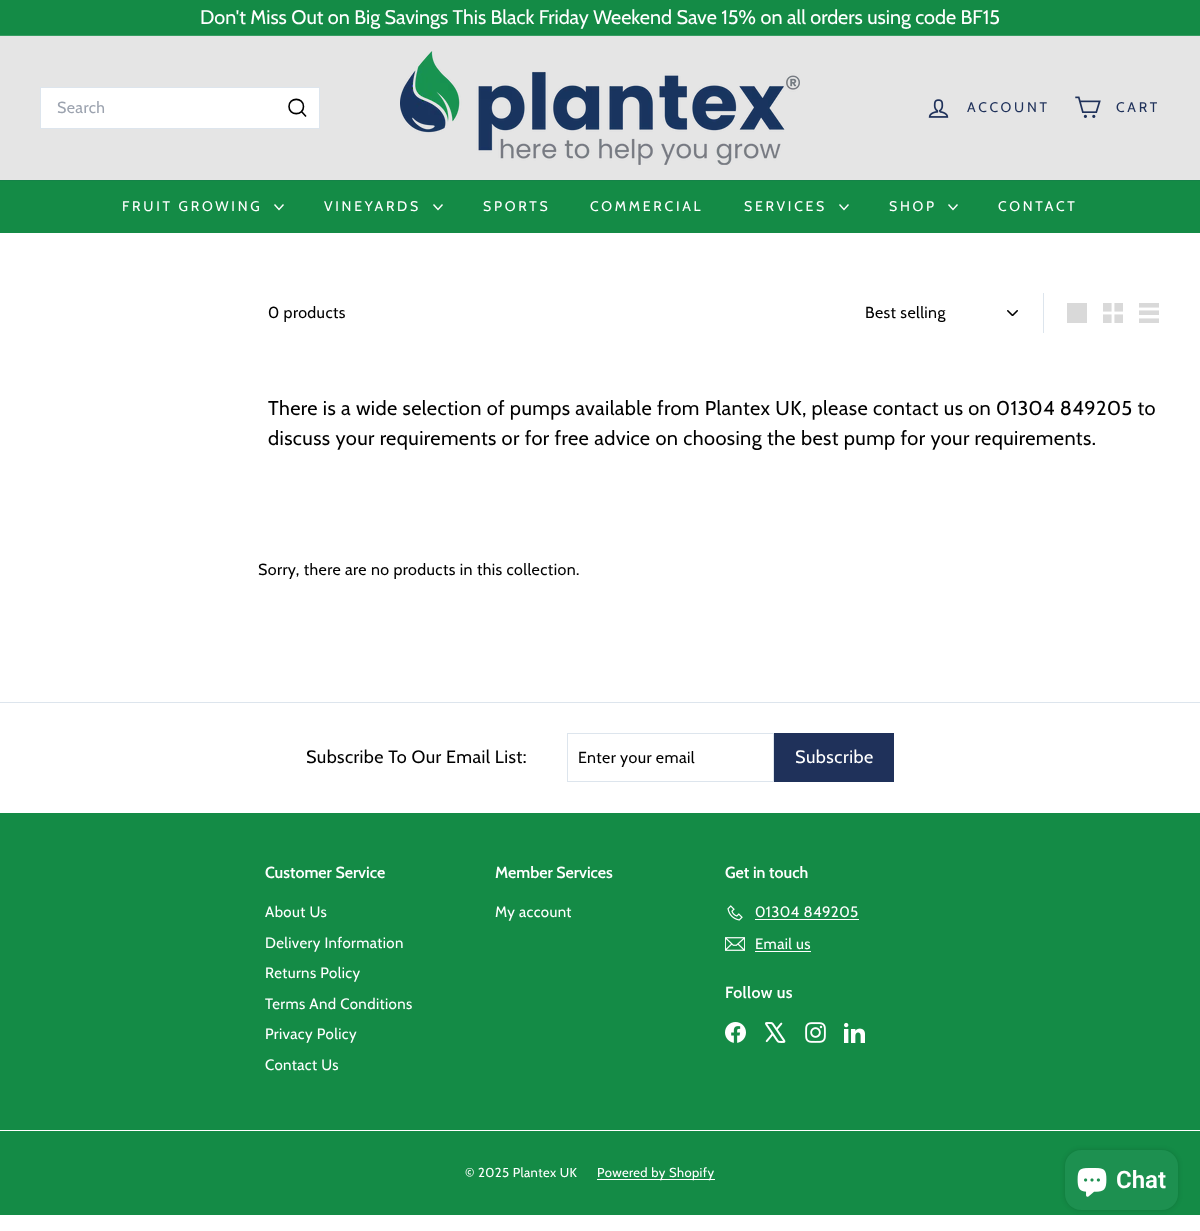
<?xml version="1.0" encoding="UTF-8"?>
<svg xmlns="http://www.w3.org/2000/svg" xmlns:xlink="http://www.w3.org/1999/xlink" width="1200" height="1231">
  <rect width="100%" height="100%" fill="#ffffff" />
  <rect width="1200" height="35" fill="#148b46" />
  <rect y="35" width="1200" height="1" fill="#379c62" />
  <rect y="36" width="1200" height="144" fill="#e5e5e5" />
  <rect x="40.5" y="87.5" width="279" height="41" fill="#ffffff" stroke="#dde5ed" />
  <path d="M 303.5 106.5 c 0 9.5 -14.5 9.5 -14.5 0 c 0 -9.5 14.5 -9.5 14.5 0 m 2.5 10 l -4.5 -5" fill="none" stroke="#000000" stroke-width="1.6" />
  <image x="400" y="51" width="400" height="114" xlink:href="image1.png" />
  <image x="928" y="99" width="21" height="19" xlink:href="image2.png" />
  <image x="1075" y="96" width="26" height="22" xlink:href="image3.png" />
  <rect y="181" width="1200" height="52" fill="#148b46" />
  <rect y="180" width="1200" height="1" fill="#158248" />
  <path d="M 274.5 204.5 l 4.5 5 l 4.5 -5" fill="none" stroke="#ffffff" stroke-width="1.4" />
  <path d="M 433.5 204.5 l 4.5 5 l 4.5 -5" fill="none" stroke="#ffffff" stroke-width="1.4" />
  <path d="M 839.5 204.5 l 4.5 5 l 4.5 -5" fill="none" stroke="#ffffff" stroke-width="1.4" />
  <path d="M 948.5 204.5 l 4.5 5 l 4.5 -5" fill="none" stroke="#ffffff" stroke-width="1.4" />
  <rect x="1043" y="293" width="1" height="40" fill="#dde5ed" />
  <image x="1007" y="310" width="11" height="6" xlink:href="image4.png" />
  <rect x="1067" y="303" width="20" height="20" fill="#d9d9d9" />
  <image x="1103" y="303" width="20" height="20" xlink:href="image5.png" />
  <image x="1139" y="303" width="20" height="20" xlink:href="image6.png" />
  <rect y="702" width="1200" height="1" fill="#dde5ed" />
  <rect x="567.5" y="733.5" width="206" height="48" fill="none" stroke="#dde5ed" />
  <rect x="774" y="733" width="120" height="49" fill="#1f315a" />
  <rect y="813" width="1200" height="402" fill="#148b46" />
  <image x="727" y="905" width="16" height="16" xlink:href="image7.png" />
  <rect x="755" y="919" width="104" height="1" fill="#ffffff" />
  <image x="725" y="937" width="20" height="14" xlink:href="image8.png" />
  <rect x="755" y="951" width="56" height="1" fill="#ffffff" />
  <image x="725" y="1022" width="21" height="21" xlink:href="image9.png" />
  <image x="765" y="1022" width="21" height="21" xlink:href="image10.png" />
  <image x="805" y="1022" width="21" height="21" xlink:href="image11.png" />
  <image x="844" y="1022" width="21" height="21" xlink:href="image12.png" />
  <rect y="1130" width="1200" height="1" fill="#ffffff" />
  <rect x="597" y="1179" width="118" height="1" fill="#ffffff" />
  <rect x="1065" y="1150" width="113" height="60" rx="16" fill="#000000" fill-opacity="0.15" filter="blur(2.5px)" />
  <rect x="1065" y="1150" width="113" height="60" rx="16" fill="#1d9050" />
  <image x="1077" y="1168" width="30" height="29" xlink:href="image13.png" />
  <text x="200" y="24" style="font-family: Cabin; font-size: 19.8px; fill: #ffffff">Don't Miss Out on Big Savings This Black Friday Weekend Save 15% on all orders using code BF15</text>
  <text x="57" y="113" style="font-family: Cabin; font-size: 16px; letter-spacing: 0.4px; fill: #9ca3af">Search</text>
  <text x="967" y="112" style="font-family: Cabin; font-size: 14px; letter-spacing: 2.75px; fill: #1f315a">ACCOUNT</text>
  <text x="1116" y="112" style="font-family: Cabin; font-size: 14px; letter-spacing: 2.75px; fill: #1f315a">CART</text>
  <text x="122" y="211" style="font-family: Cabin; font-size: 14px; letter-spacing: 2.75px; fill: #ffffff">FRUIT GROWING</text>
  <text x="324" y="211" style="font-family: Cabin; font-size: 14px; letter-spacing: 2.75px; fill: #ffffff">VINEYARDS</text>
  <text x="483" y="211" style="font-family: Cabin; font-size: 14px; letter-spacing: 2.75px; fill: #ffffff">SPORTS</text>
  <text x="590" y="211" style="font-family: Cabin; font-size: 14px; letter-spacing: 2.75px; fill: #ffffff">COMMERCIAL</text>
  <text x="744" y="211" style="font-family: Cabin; font-size: 14px; letter-spacing: 2.75px; fill: #ffffff">SERVICES</text>
  <text x="889" y="211" style="font-family: Cabin; font-size: 14px; letter-spacing: 2.75px; fill: #ffffff">SHOP</text>
  <text x="998" y="211" style="font-family: Cabin; font-size: 14px; letter-spacing: 2.75px; fill: #ffffff">CONTACT</text>
  <text x="268" y="318" style="font-family: Cabin; font-size: 16px; letter-spacing: 0.4px; fill: #000000">0 products</text>
  <text x="865" y="318" style="font-family: Cabin; font-size: 16px; letter-spacing: 0.4px; fill: #000000">Best selling</text>
  <text x="268" y="415" style="font-family: Cabin; font-size: 20px; letter-spacing: 0.4px; fill: #000000">There is a wide selection of pumps available from Plantex UK, please contact us on 01304 849205 to</text>
  <text x="268" y="445" style="font-family: Cabin; font-size: 20px; letter-spacing: 0.4px; fill: #000000">discuss your requirements or for free advice on choosing the best pump for your requirements.</text>
  <text x="258" y="575" style="font-family: Cabin; font-size: 16px; letter-spacing: 0.4px; fill: #000000">Sorry, there are no products in this collection.</text>
  <text x="306" y="763" style="font-family: Cabin; font-size: 18px; letter-spacing: 0.4px; fill: #000000">Subscribe To Our Email List:</text>
  <text x="578" y="763" style="font-family: Cabin; font-size: 16px; letter-spacing: 0.4px; fill: #000000">Enter your email</text>
  <text x="795" y="763" style="font-family: Cabin; font-size: 18px; letter-spacing: 0.5px; fill: #ffffff">Subscribe</text>
  <text x="265" y="878" style="font-family: Cabin; font-size: 16px; font-weight: 600; fill: #ffffff">Customer Service</text>
  <text x="265" y="917" style="font-family: Cabin; font-size: 15px; letter-spacing: 0.4px; fill: #ffffff">About Us</text>
  <text x="265" y="948" style="font-family: Cabin; font-size: 15px; letter-spacing: 0.4px; fill: #ffffff">Delivery Information</text>
  <text x="265" y="978" style="font-family: Cabin; font-size: 15px; letter-spacing: 0.4px; fill: #ffffff">Returns Policy</text>
  <text x="265" y="1009" style="font-family: Cabin; font-size: 15px; letter-spacing: 0.4px; fill: #ffffff">Terms And Conditions</text>
  <text x="265" y="1039" style="font-family: Cabin; font-size: 15px; letter-spacing: 0.4px; fill: #ffffff">Privacy Policy</text>
  <text x="265" y="1070" style="font-family: Cabin; font-size: 15px; letter-spacing: 0.4px; fill: #ffffff">Contact Us</text>
  <text x="495" y="878" style="font-family: Cabin; font-size: 16px; font-weight: 600; fill: #ffffff">Member Services</text>
  <text x="495" y="917" style="font-family: Cabin; font-size: 15px; letter-spacing: 0.4px; fill: #ffffff">My account</text>
  <text x="725" y="878" style="font-family: Cabin; font-size: 16px; font-weight: 600; fill: #ffffff">Get in touch</text>
  <text x="755" y="917" style="font-family: Cabin; font-size: 15px; letter-spacing: 0.4px; fill: #ffffff">01304 849205</text>
  <text x="755" y="949" style="font-family: Cabin; font-size: 15px; letter-spacing: 0.4px; fill: #ffffff">Email us</text>
  <text x="725" y="998" style="font-family: Cabin; font-size: 16px; font-weight: 600; letter-spacing: 0.4px; fill: #ffffff">Follow us</text>
  <text x="465" y="1177" style="font-family: Cabin; font-size: 13px; letter-spacing: 0.4px; fill: #ffffff">© 2025 Plantex UK</text>
  <text x="597" y="1177" style="font-family: Cabin; font-size: 13px; letter-spacing: 0.4px; fill: #ffffff">Powered by Shopify</text>
  <text x="1116" y="1188" style="font-family: Roboto; font-size: 24px; font-weight: 600; fill: #ffffff">Chat</text>
</svg>
